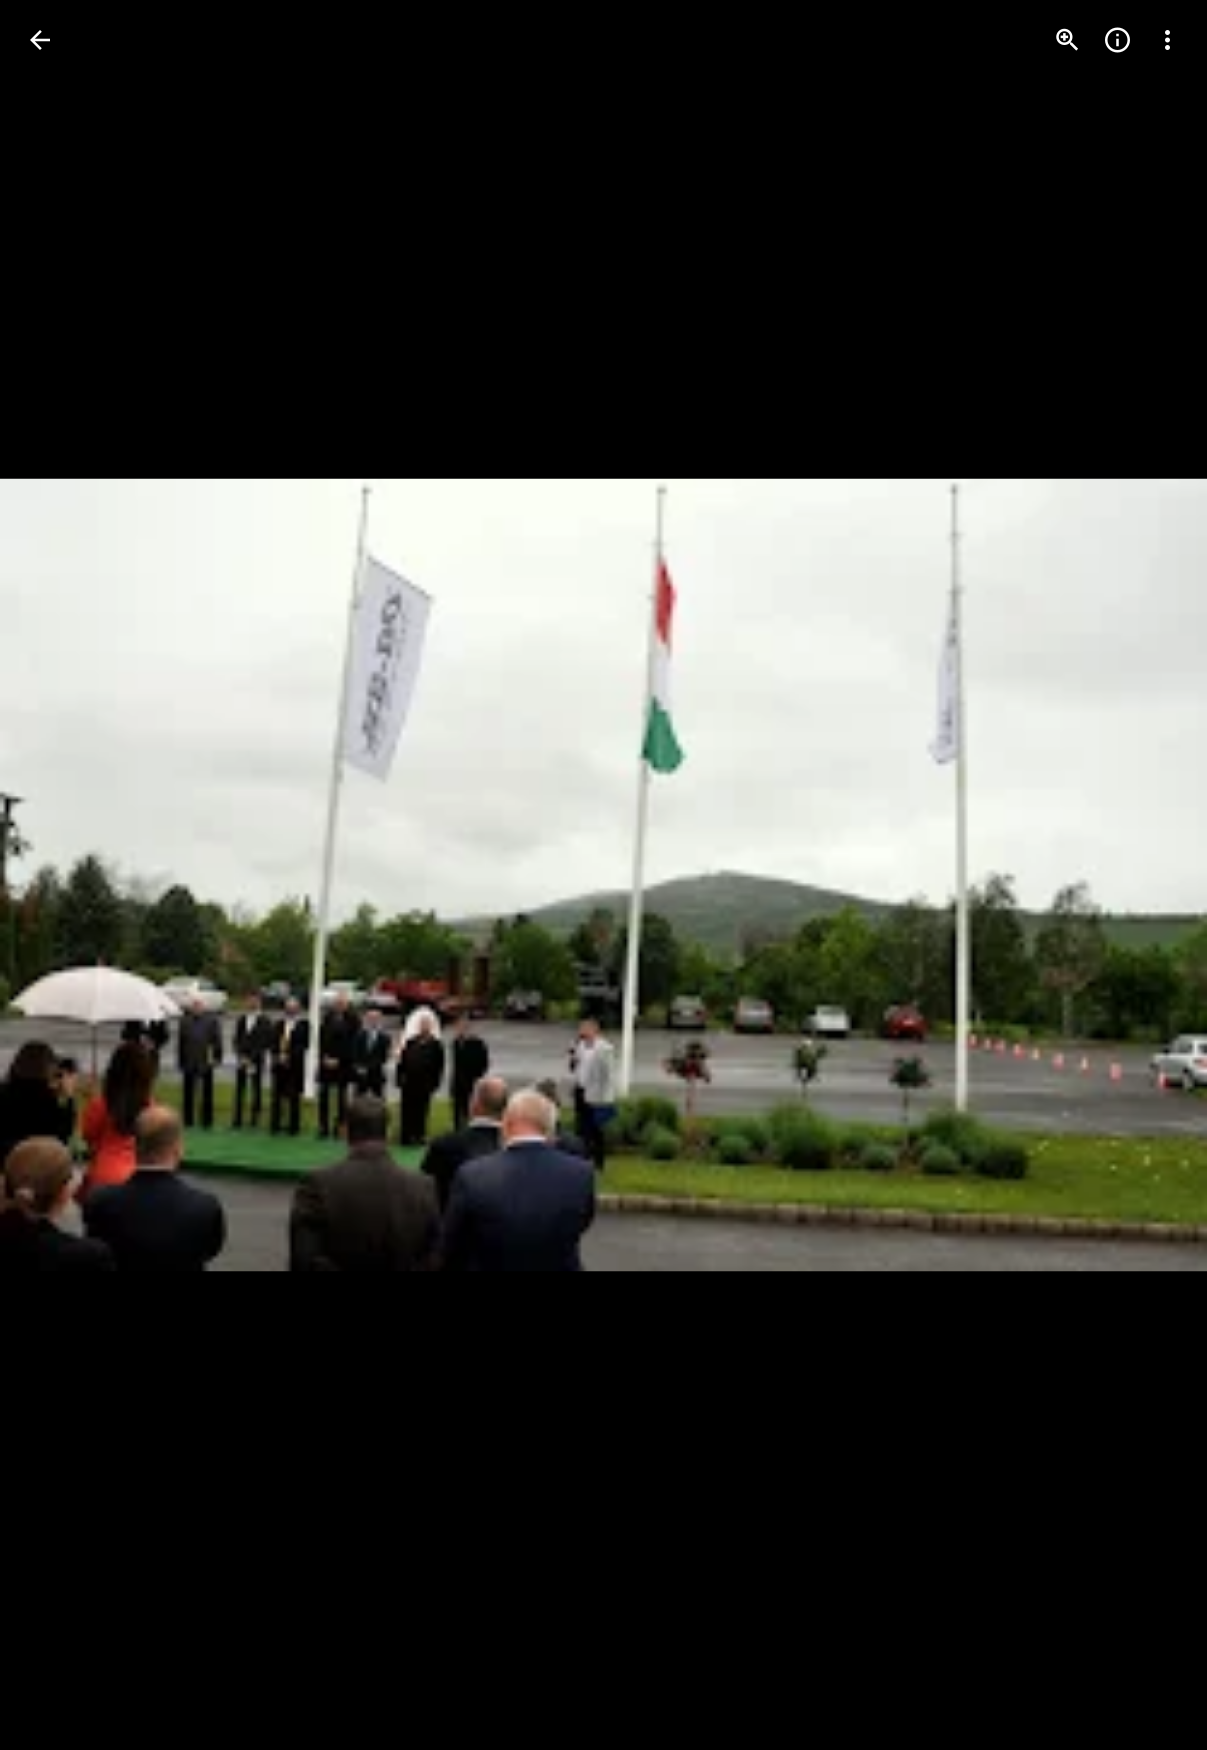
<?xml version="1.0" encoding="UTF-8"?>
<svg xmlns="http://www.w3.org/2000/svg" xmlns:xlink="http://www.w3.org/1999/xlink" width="1207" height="1750">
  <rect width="100%" height="100%" fill="#000000" />
  <image x="30" y="30" width="20" height="20" xlink:href="image1.png" />
  <image x="1056" y="28" width="22" height="23" xlink:href="image2.png" />
  <image x="1105" y="27" width="25" height="26" xlink:href="image3.png" />
  <image x="1165" y="30" width="5" height="20" xlink:href="image4.png" />
  <image x="0" y="478" width="1207" height="794" xlink:href="image5.png" />
</svg>
